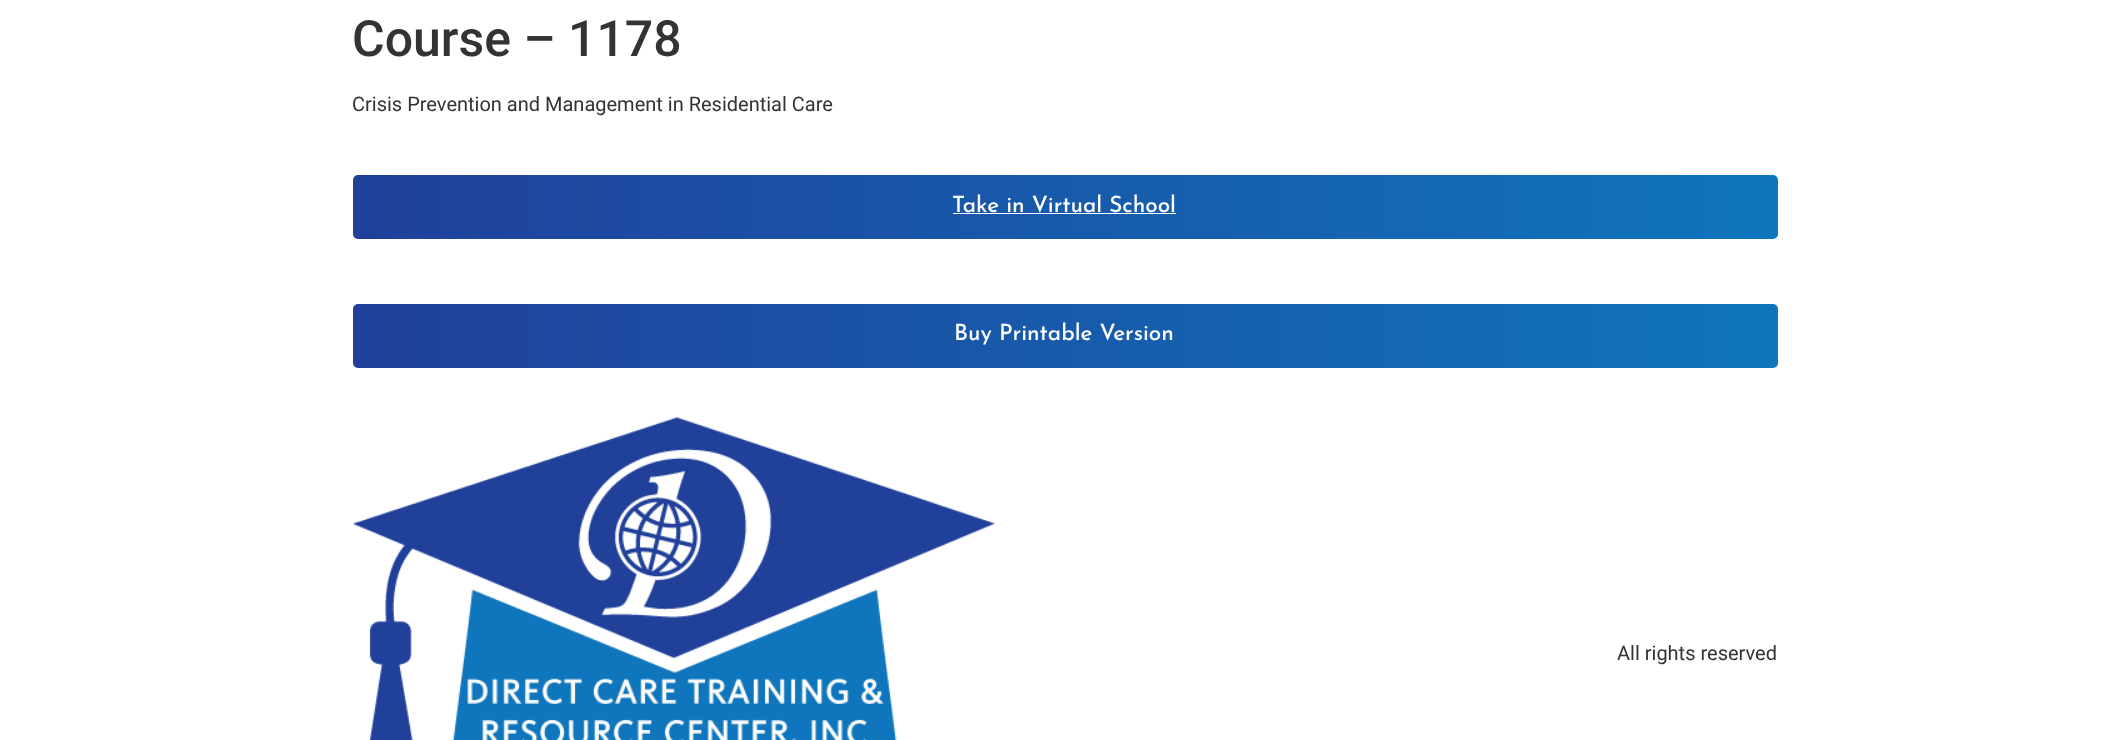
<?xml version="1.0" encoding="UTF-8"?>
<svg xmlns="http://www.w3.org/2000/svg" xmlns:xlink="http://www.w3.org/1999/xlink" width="2128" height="740">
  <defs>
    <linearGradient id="g1" gradientUnits="userSpaceOnUse" x1="1778" y1="207" x2="353" y2="207"><stop offset="0" stop-color="#0f75bc" /><stop offset="1" stop-color="#20409a" /></linearGradient>
    <linearGradient id="g2" gradientUnits="userSpaceOnUse" x1="1778" y1="336" x2="353" y2="336"><stop offset="0" stop-color="#0f75bc" /><stop offset="1" stop-color="#20409a" /></linearGradient>
  </defs>
  <rect width="100%" height="100%" fill="#ffffff" />
  <rect x="353" y="175" width="1425" height="64" rx="5" fill="url(#g1)" />
  <rect x="953" y="213" width="223" height="1" fill="#ffffff" />
  <rect x="353" y="304" width="1425" height="64" rx="5" fill="url(#g2)" />
  <image x="352" y="417" width="643" height="323" xlink:href="image1.png" />
  <text x="352" y="56" style="font-family: Roboto; font-size: 50px; font-weight: 500; fill: #333333">Course – 1178</text>
  <text x="352" y="111" style="font-family: Roboto; font-size: 20px; fill: #333333">Crisis Prevention and Management in Residential Care</text>
  <text x="952" y="212" style="font-family: Josefin Sans; font-size: 22.5px; font-weight: 500; fill: #ffffff">Take in Virtual School</text>
  <text x="954" y="340" style="font-family: Josefin Sans; font-size: 22.5px; font-weight: 500; fill: #ffffff">Buy Printable Version</text>
  <text x="1617" y="660" style="font-family: Roboto; font-size: 20px; fill: #333333">All rights reserved</text>
</svg>
